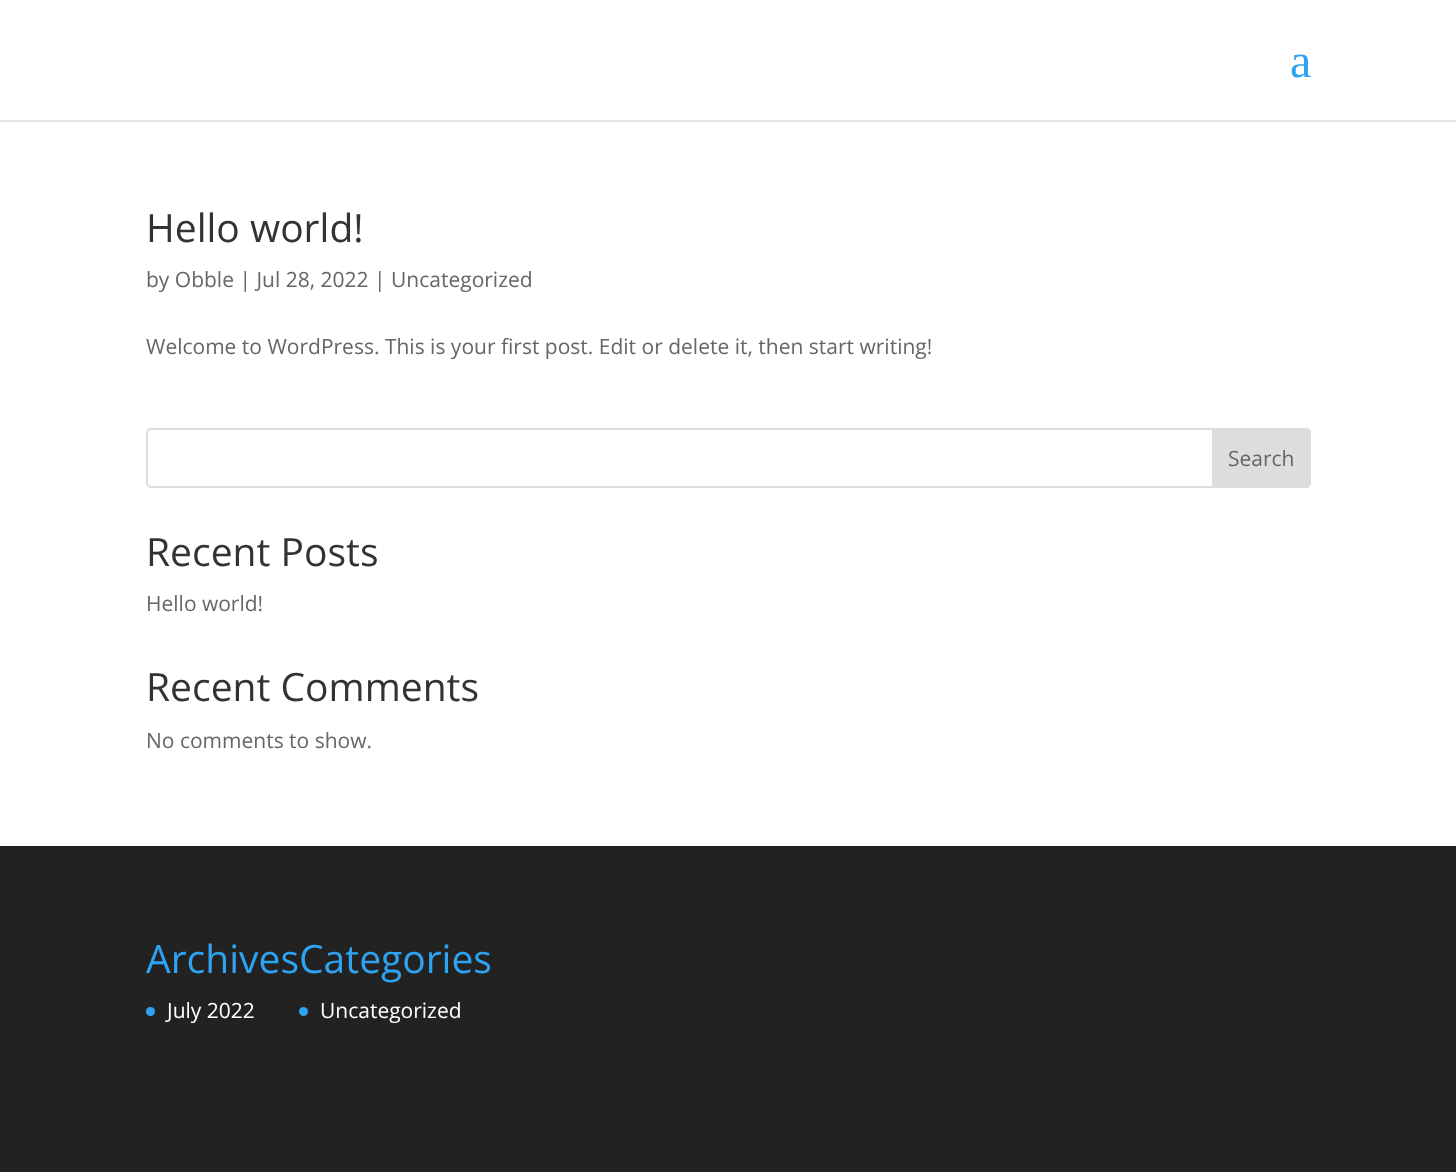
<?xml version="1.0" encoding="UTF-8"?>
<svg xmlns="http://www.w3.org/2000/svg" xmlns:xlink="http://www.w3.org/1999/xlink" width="1456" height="1172">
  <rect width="100%" height="100%" fill="#ffffff" />
  <path d="M 0 120 v 2 h 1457 v -120 h -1 v 118 z" fill="#e6e6e6" />
  <rect x="147" y="429" width="1163" height="58" rx="4" fill="none" stroke="#dddddd" stroke-width="2" />
  <path d="M 1213 429 h 93 c 2 0 4 2 4 4 v 50 c 0 2 -2 4 -4 4 h -93 z" fill="#dddddd" stroke="#dddddd" stroke-width="2" />
  <rect y="846" width="1456" height="326" fill="#222222" />
  <circle cx="150.5" cy="1011.5" r="4.5" fill="#2ea3f2" />
  <circle cx="303.5" cy="1011.5" r="4.5" fill="#2ea3f2" />
  <text x="1290" y="77" style="font-family: Liberation Serif; font-size: 48px; fill: #2ea3f2">a</text>
  <text x="146" y="242" style="font-family: Open Sans; font-size: 39px; fill: #333333">Hello world!</text>
  <text x="146" y="287" style="font-family: Open Sans; font-size: 21px; fill: #666666">by Obble | Jul 28, 2022 | Uncategorized</text>
  <text x="146" y="354" style="font-family: Open Sans; font-size: 21px; fill: #666666">Welcome to WordPress. This is your first post. Edit or delete it, then start writing!</text>
  <text x="1228" y="466" style="font-family: Open Sans; font-size: 21px; fill: #666666">Search</text>
  <text x="146" y="566" style="font-family: Open Sans; font-size: 39px; fill: #333333">Recent Posts</text>
  <text x="146" y="611" style="font-family: Open Sans; font-size: 21px; fill: #666666">Hello world!</text>
  <text x="146" y="701" style="font-family: Open Sans; font-size: 39px; fill: #333333">Recent Comments</text>
  <text x="146" y="748" style="font-family: Open Sans; font-size: 21px; fill: #666666">No comments to show.</text>
  <text x="146" y="973" style="font-family: Open Sans; font-size: 39px; fill: #2ea3f2">ArchivesCategories</text>
  <text x="167" y="1018" style="font-family: Open Sans; font-size: 21px; fill: #ffffff">July 2022</text>
  <text x="320" y="1018" style="font-family: Open Sans; font-size: 21px; fill: #ffffff">Uncategorized</text>
</svg>
